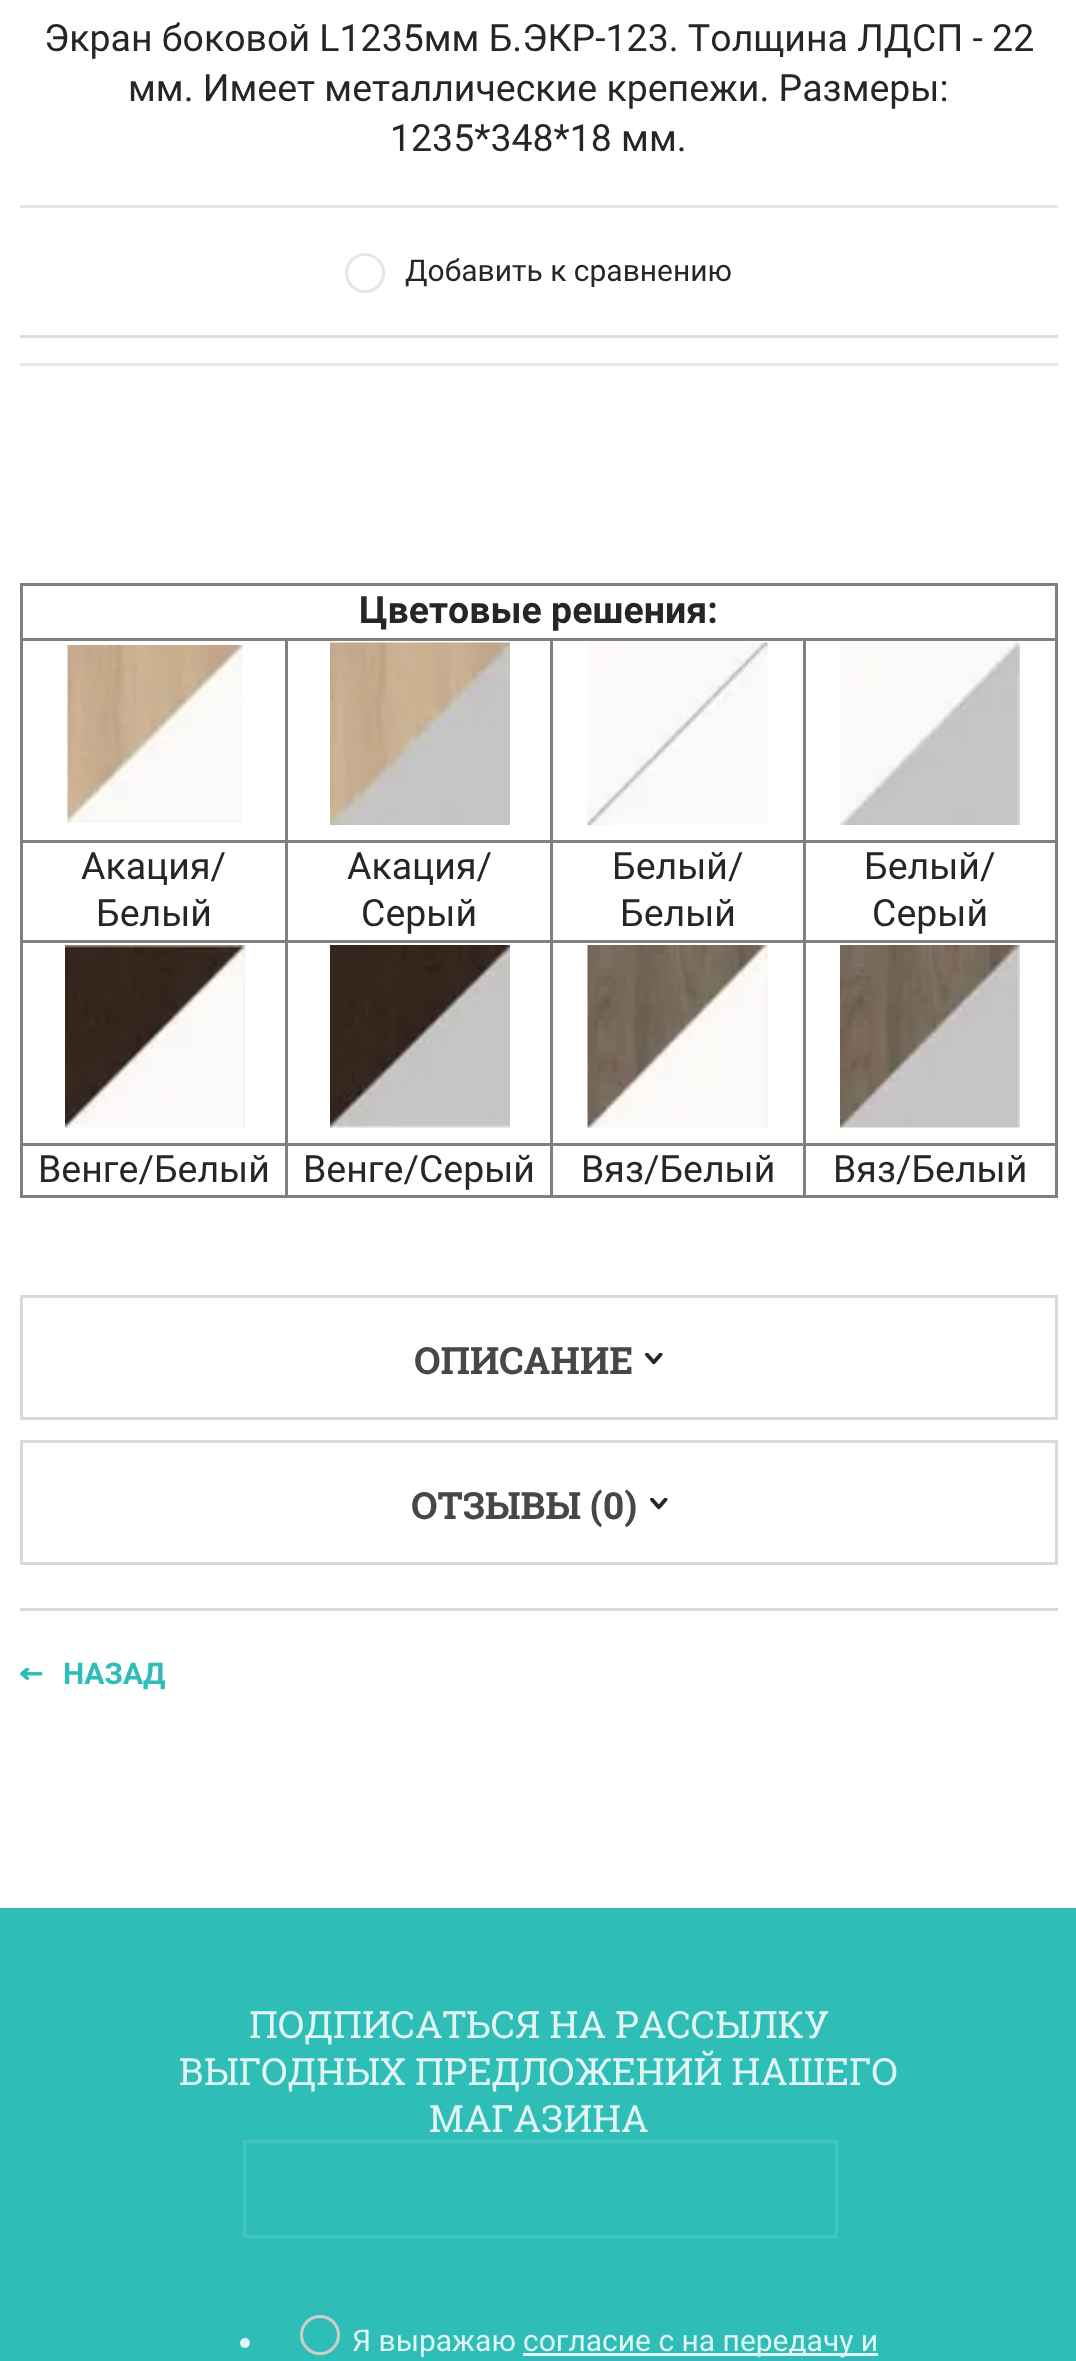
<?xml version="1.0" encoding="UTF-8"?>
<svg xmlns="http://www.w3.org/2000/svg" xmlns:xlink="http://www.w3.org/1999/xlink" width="1076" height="2361">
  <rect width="100%" height="100%" fill="#ffffff" />
  <rect x="20" y="205" width="1038" height="3" fill="#e6e6e6" />
  <rect x="20" y="363" width="1038" height="3" fill="#e6e6e6" />
  <rect x="20" y="335" width="1038" height="3" fill="#dedede" />
  <circle cx="365" cy="273" r="18.5" fill="none" stroke="#e6e6e6" stroke-width="3" />
  <rect x="20" y="583" width="1038" height="3" fill="#808080" />
  <rect x="1055" y="583" width="3" height="615" fill="#808080" />
  <rect x="20" y="1195" width="1038" height="3" fill="#808080" />
  <rect x="20" y="583" width="3" height="615" fill="#808080" />
  <rect x="803" y="638" width="255" height="3" fill="#808080" />
  <rect x="803" y="840" width="255" height="3" fill="#808080" />
  <rect x="803" y="940" width="255" height="3" fill="#808080" />
  <rect x="803" y="1143" width="255" height="3" fill="#808080" />
  <rect x="803" y="1143" width="3" height="55" fill="#808080" />
  <rect x="550" y="1143" width="255" height="3" fill="#808080" />
  <rect x="803" y="940" width="3" height="205" fill="#808080" />
  <rect x="550" y="940" width="255" height="3" fill="#808080" />
  <rect x="803" y="840" width="3" height="103" fill="#808080" />
  <rect x="550" y="840" width="255" height="3" fill="#808080" />
  <rect x="803" y="638" width="3" height="205" fill="#808080" />
  <rect x="550" y="638" width="255" height="3" fill="#808080" />
  <rect x="550" y="1143" width="3" height="55" fill="#808080" />
  <rect x="285" y="1143" width="268" height="3" fill="#808080" />
  <rect x="550" y="940" width="3" height="205" fill="#808080" />
  <rect x="285" y="940" width="268" height="3" fill="#808080" />
  <rect x="550" y="840" width="3" height="103" fill="#808080" />
  <rect x="285" y="840" width="268" height="3" fill="#808080" />
  <rect x="550" y="638" width="3" height="205" fill="#808080" />
  <rect x="285" y="638" width="268" height="3" fill="#808080" />
  <rect x="285" y="1143" width="3" height="55" fill="#808080" />
  <rect x="20" y="1143" width="268" height="3" fill="#808080" />
  <rect x="285" y="940" width="3" height="205" fill="#808080" />
  <rect x="20" y="940" width="268" height="3" fill="#808080" />
  <rect x="285" y="840" width="3" height="103" fill="#808080" />
  <rect x="20" y="840" width="268" height="3" fill="#808080" />
  <rect x="285" y="638" width="3" height="205" fill="#808080" />
  <rect x="20" y="638" width="268" height="3" fill="#808080" />
  <image x="67" y="645" width="176" height="178" xlink:href="image1.png" />
  <image x="330" y="642" width="180" height="183" xlink:href="image2.png" />
  <image x="587" y="642" width="181" height="183" xlink:href="image3.png" />
  <image x="840" y="642" width="180" height="183" xlink:href="image4.png" />
  <image x="65" y="945" width="180" height="183" xlink:href="image5.png" />
  <image x="330" y="945" width="180" height="183" xlink:href="image6.png" />
  <image x="587" y="945" width="181" height="183" xlink:href="image7.png" />
  <image x="840" y="945" width="180" height="183" xlink:href="image8.png" />
  <rect x="20" y="1608" width="1038" height="3" fill="#d9d9d9" />
  <rect x="21.5" y="1296.5" width="1035" height="122" fill="none" stroke="#d9d9d9" stroke-width="3" />
  <image x="645" y="1353" width="18" height="12" xlink:href="image9.png" />
  <rect x="21.5" y="1441.5" width="1035" height="122" fill="none" stroke="#d9d9d9" stroke-width="3" />
  <image x="650" y="1498" width="18" height="12" xlink:href="image9.png" />
  <image x="20" y="1668" width="23" height="12" xlink:href="image10.png" />
  <rect y="1908" width="1076" height="453" fill="#2fbdb8" />
  <rect x="244.5" y="2141.5" width="592" height="95" fill="none" stroke="#44c4bf" stroke-width="3" />
  <circle cx="245" cy="2343" r="5" fill="#e0f5f4" />
  <circle cx="320" cy="2335" r="18.5" fill="none" stroke="#cdcdcd" stroke-width="3" />
  <rect x="523" y="2353" width="355" height="3" fill="#e0f5f4" />
  <text x="44" y="51" style="font-family: Roboto; font-size: 37.5px; fill: #262626">Экран боковой L1235мм Б.ЭКР-123. Толщина ЛДСП - 22</text>
  <text x="128" y="101" style="font-family: Roboto; font-size: 37.5px; fill: #262626">мм. Имеет металлические крепежи. Размеры:</text>
  <text x="390" y="151" style="font-family: Roboto; font-size: 37.5px; fill: #262626">1235*348*18 мм.</text>
  <text x="405" y="281" style="font-family: Roboto; font-size: 30px; fill: #262626">Добавить к сравнению</text>
  <text x="359" y="623" style="font-family: Roboto; font-size: 37.5px; font-weight: bold; fill: #262626">Цветовые решения:</text>
  <text x="81" y="879" style="font-family: Roboto; font-size: 37.5px; fill: #262626">Акация/</text>
  <text x="96" y="926" style="font-family: Roboto; font-size: 37.5px; fill: #262626">Белый</text>
  <text x="347" y="879" style="font-family: Roboto; font-size: 37.5px; fill: #262626">Акация/</text>
  <text x="361" y="926" style="font-family: Roboto; font-size: 37.5px; fill: #262626">Серый</text>
  <text x="612" y="879" style="font-family: Roboto; font-size: 37.5px; fill: #262626">Белый/</text>
  <text x="620" y="926" style="font-family: Roboto; font-size: 37.5px; fill: #262626">Белый</text>
  <text x="864" y="879" style="font-family: Roboto; font-size: 37.5px; fill: #262626">Белый/</text>
  <text x="872" y="926" style="font-family: Roboto; font-size: 37.5px; fill: #262626">Серый</text>
  <text x="38" y="1182" style="font-family: Roboto; font-size: 37.5px; fill: #262626">Венге/Белый</text>
  <text x="303" y="1182" style="font-family: Roboto; font-size: 37.5px; fill: #262626">Венге/Серый</text>
  <text x="581" y="1182" style="font-family: Roboto; font-size: 37.5px; fill: #262626">Вяз/Белый</text>
  <text x="833" y="1182" style="font-family: Roboto; font-size: 37.5px; fill: #262626">Вяз/Белый</text>
  <text x="414" y="1374" style="font-family: Roboto Slab; font-size: 37.5px; font-weight: bold; fill: #474747">ОПИСАНИЕ</text>
  <text x="411" y="1519" style="font-family: Roboto Slab; font-size: 37.5px; font-weight: bold; fill: #474747">ОТЗЫВЫ (0)</text>
  <text x="63" y="1684" style="font-family: Roboto; font-size: 30px; font-weight: bold; fill: #2fbdb8">НАЗАД</text>
  <text x="249" y="2038" style="font-family: Roboto Slab; font-size: 37.5px; fill: #e0f5f4">ПОДПИСАТЬСЯ НА РАССЫЛКУ</text>
  <text x="179" y="2085" style="font-family: Roboto Slab; font-size: 37.5px; fill: #e0f5f4">ВЫГОДНЫХ ПРЕДЛОЖЕНИЙ НАШЕГО</text>
  <text x="429" y="2132" style="font-family: Roboto Slab; font-size: 37.5px; fill: #e0f5f4">МАГАЗИНА</text>
  <text x="352" y="2351" style="font-family: Roboto; font-size: 30px; fill: #e0f5f4">Я выражаю</text>
  <text x="523" y="2351" style="font-family: Roboto; font-size: 30px; fill: #e0f5f4">согласие с на передачу и</text>
</svg>
